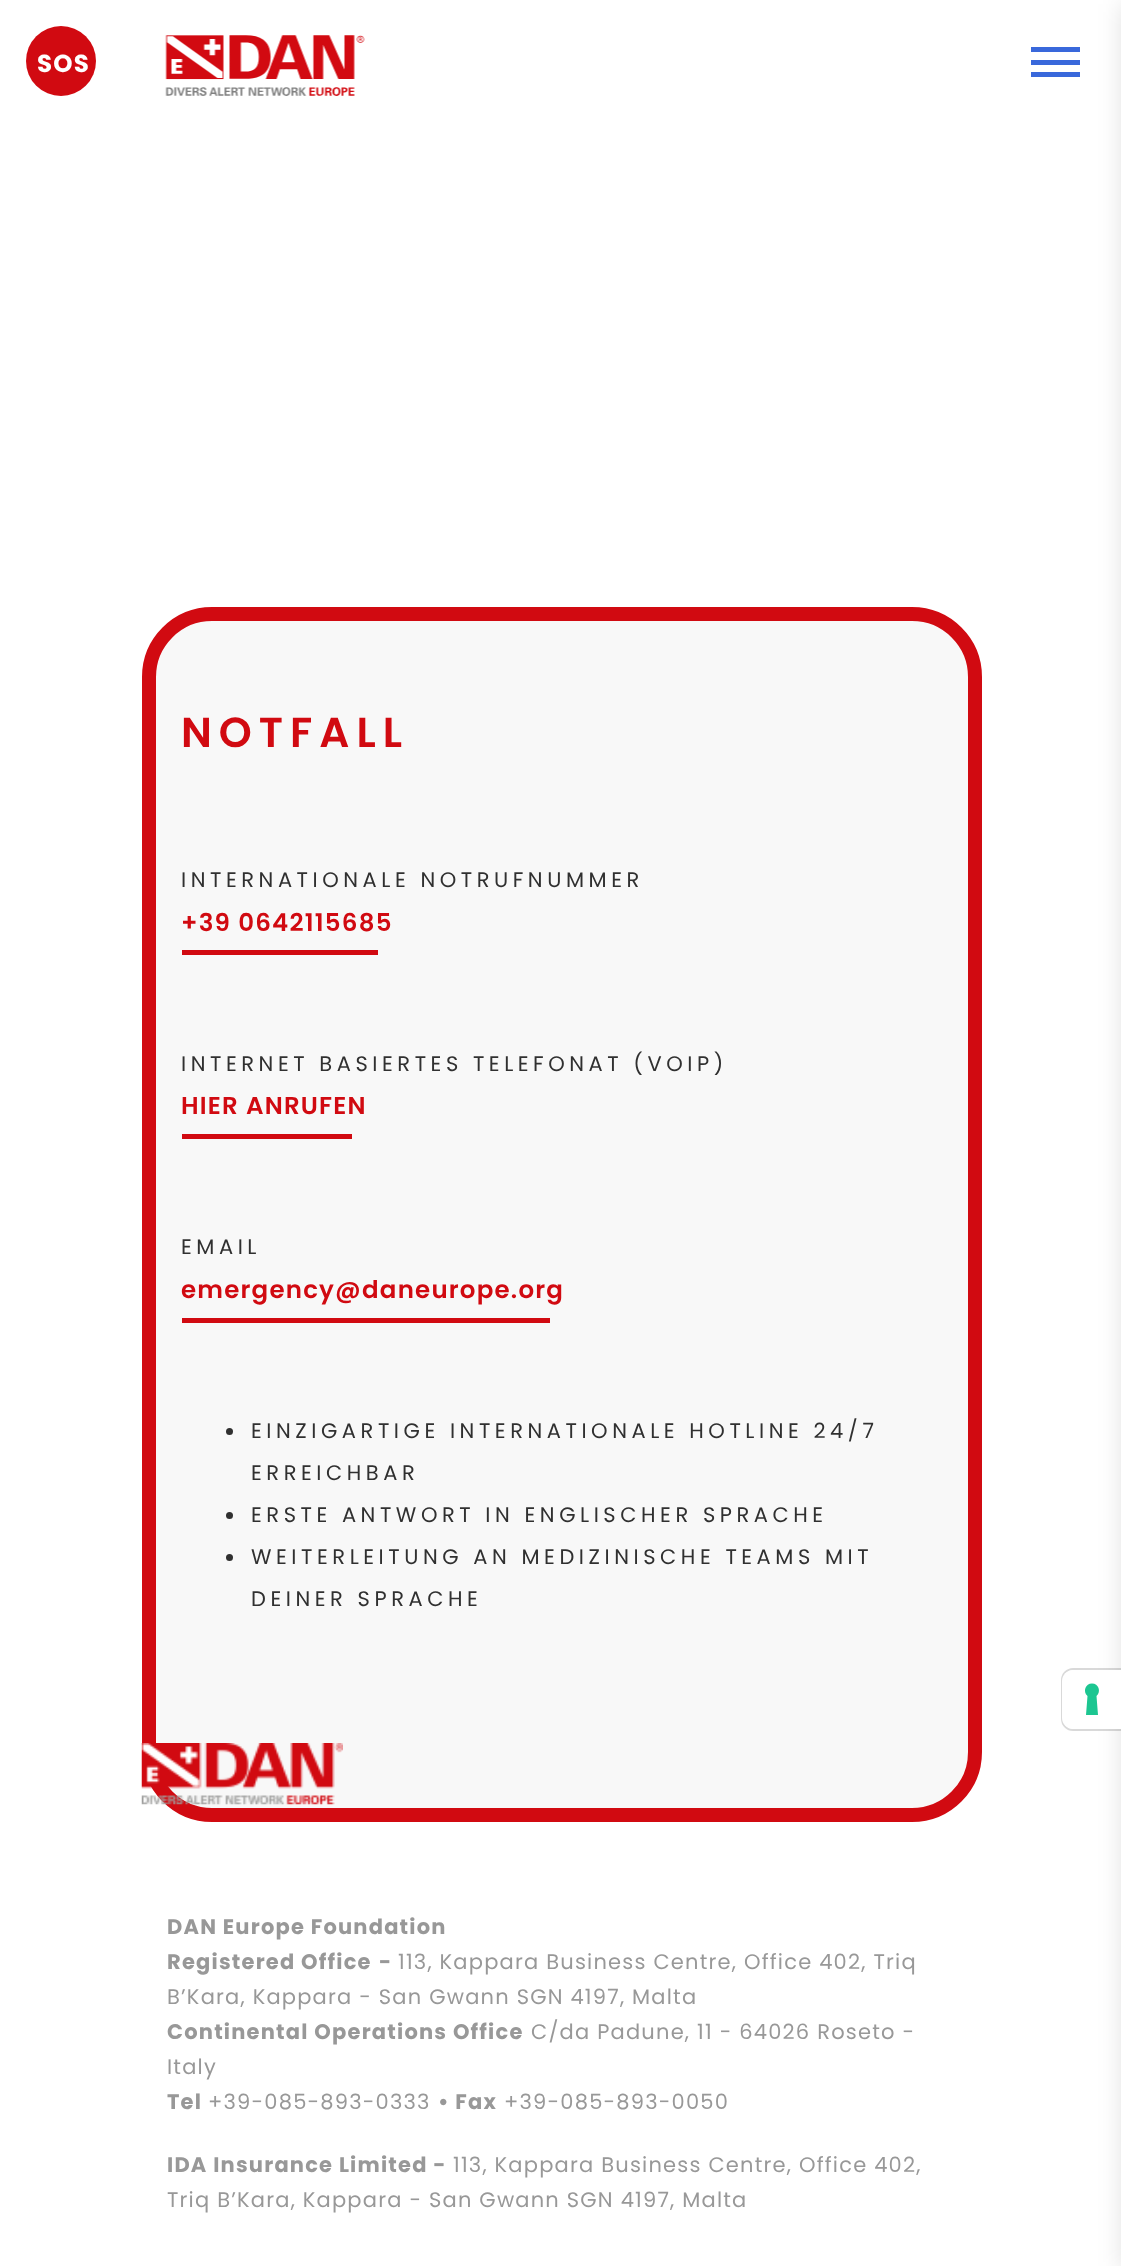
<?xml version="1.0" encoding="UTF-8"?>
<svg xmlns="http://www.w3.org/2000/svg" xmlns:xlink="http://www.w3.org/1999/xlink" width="1121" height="2266">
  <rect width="100%" height="100%" fill="#ffffff" />
  <circle cx="61" cy="61" r="35" fill="#d10a11" />
  <image x="165" y="35" width="200" height="61" xlink:href="image1.png" />
  <path d="M 1031 52 v -5 h 49 v 5 z m 0 13 v -5 h 49 v 5 z m 0 12 v -5 h 49 v 5 z" fill="#3968db" />
  <rect x="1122" y="4" width="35" height="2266" fill="#000000" fill-opacity="0.12" filter="blur(12px)" />
  <rect x="149" y="614" width="826" height="1201" rx="63" fill="#f8f8f8" stroke="#d10a11" stroke-width="14" />
  <rect x="182" y="950" width="196" height="5" fill="#d10a11" />
  <rect x="182" y="1134" width="170" height="5" fill="#d10a11" />
  <rect x="182" y="1318" width="368" height="5" fill="#d10a11" />
  <circle cx="229.5" cy="1431.5" r="3.5" fill="#303030" />
  <circle cx="229.5" cy="1515.5" r="3.5" fill="#303030" />
  <circle cx="229.5" cy="1557.5" r="3.5" fill="#303030" />
  <image x="141" y="1743" width="202" height="62" xlink:href="image2.png" />
  <path d="M 1073 1669 h 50 v 61 h -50 c -6 0 -11 -5 -11 -11 v -39 c 0 -6 5 -11 11 -11 z" fill="none" stroke="#000000" stroke-opacity="0.15" stroke-width="2" />
  <path d="M 1073 1670 h 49 v 59 h -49 c -6 0 -11 -5 -11 -11 v -37 c 0 -6 5 -11 11 -11 z" fill="#ffffff" />
  <path d="M 1092 1683.5 c 6.5 0 9.5 8 4.5 12.5 l 1.5 19 h -12 l 1.5 -19 c -5 -4.5 -2 -12.5 4.5 -12.5 z" fill="#1cc691" fill-rule="evenodd" />
  <text x="37" y="72" style="font-family: Poppins; font-size: 24.5px; font-weight: bold; letter-spacing: 1.2px; fill: #ffffff">SOS</text>
  <text x="181" y="747" style="font-family: Poppins; font-size: 42px; font-weight: 600; letter-spacing: 7px; fill: #d10a11">NOTFALL</text>
  <text x="181" y="887" style="font-family: Poppins; font-size: 21px; letter-spacing: 4.55px; fill: #303030">INTERNATIONALE NOTRUFNUMMER</text>
  <text x="181" y="931" style="font-family: Poppins; font-size: 24.5px; font-weight: 600; letter-spacing: 1.2px; fill: #d10a11">+39 0642115685</text>
  <text x="181" y="1071" style="font-family: Poppins; font-size: 21px; letter-spacing: 4.55px; fill: #303030">INTERNET BASIERTES TELEFONAT (VOIP)</text>
  <text x="181" y="1114" style="font-family: Poppins; font-size: 24.5px; font-weight: 600; letter-spacing: 1.2px; fill: #d10a11">HIER ANRUFEN</text>
  <text x="181" y="1254" style="font-family: Poppins; font-size: 21px; letter-spacing: 4.55px; fill: #303030">EMAIL</text>
  <text x="181" y="1298" style="font-family: Poppins; font-size: 24.5px; font-weight: 600; letter-spacing: 1.2px; fill: #d10a11">emergency@daneurope.org</text>
  <text x="251" y="1438" style="font-family: Poppins; font-size: 21px; letter-spacing: 4.55px; fill: #303030">EINZIGARTIGE INTERNATIONALE HOTLINE 24/7</text>
  <text x="251" y="1480" style="font-family: Poppins; font-size: 21px; letter-spacing: 4.55px; fill: #303030">ERREICHBAR</text>
  <text x="251" y="1522" style="font-family: Poppins; font-size: 21px; letter-spacing: 4.55px; fill: #303030">ERSTE ANTWORT IN ENGLISCHER SPRACHE</text>
  <text x="251" y="1564" style="font-family: Poppins; font-size: 21px; letter-spacing: 4.55px; fill: #303030">WEITERLEITUNG AN MEDIZINISCHE TEAMS MIT</text>
  <text x="251" y="1606" style="font-family: Poppins; font-size: 21px; letter-spacing: 4.55px; fill: #303030">DEINER SPRACHE</text>
  <text x="167" y="1934" style="font-family: Poppins; font-size: 21px; font-weight: bold; letter-spacing: 1.2px; fill: #989898">DAN Europe Foundation</text>
  <text x="167" y="1969" style="font-family: Poppins; font-size: 21px; font-weight: bold; letter-spacing: 1.2px; fill: #989898">Registered Office</text>
  <text x="379" y="1969" style="font-family: Poppins; font-size: 21px; font-weight: bold; letter-spacing: 1.2px; fill: #989898">-</text>
  <text x="398" y="1969" style="font-family: Poppins; font-size: 21px; letter-spacing: 1.2px; fill: #989898">113, Kappara Business Centre, Office 402, Triq</text>
  <text x="167" y="2004" style="font-family: Poppins; font-size: 21px; letter-spacing: 1.2px; fill: #989898">B’Kara, Kappara - San Gwann SGN 4197, Malta</text>
  <text x="167" y="2039" style="font-family: Poppins; font-size: 21px; font-weight: bold; letter-spacing: 1.2px; fill: #989898">Continental Operations Office</text>
  <text x="531" y="2039" style="font-family: Poppins; font-size: 21px; letter-spacing: 1.2px; fill: #989898">C/da Padune, 11 - 64026 Roseto -</text>
  <text x="167" y="2074" style="font-family: Poppins; font-size: 21px; letter-spacing: 1.2px; fill: #989898">Italy</text>
  <text x="167" y="2109" style="font-family: Poppins; font-size: 21px; font-weight: bold; letter-spacing: 1.2px; fill: #989898">Tel</text>
  <text x="208" y="2109" style="font-family: Poppins; font-size: 21px; letter-spacing: 1.2px; fill: #989898">+39-085-893-0333</text>
  <text x="438" y="2109" style="font-family: Poppins; font-size: 21px; font-weight: bold; letter-spacing: 1.2px; fill: #989898">• Fax</text>
  <text x="504" y="2109" style="font-family: Poppins; font-size: 21px; letter-spacing: 1.2px; fill: #989898">+39-085-893-0050</text>
  <text x="167" y="2172" style="font-family: Poppins; font-size: 21px; font-weight: bold; letter-spacing: 1.2px; fill: #989898">IDA Insurance Limited -</text>
  <text x="453" y="2172" style="font-family: Poppins; font-size: 21px; letter-spacing: 1.2px; fill: #989898">113, Kappara Business Centre, Office 402,</text>
  <text x="167" y="2207" style="font-family: Poppins; font-size: 21px; letter-spacing: 1.2px; fill: #989898">Triq B’Kara, Kappara - San Gwann SGN 4197, Malta</text>
</svg>
